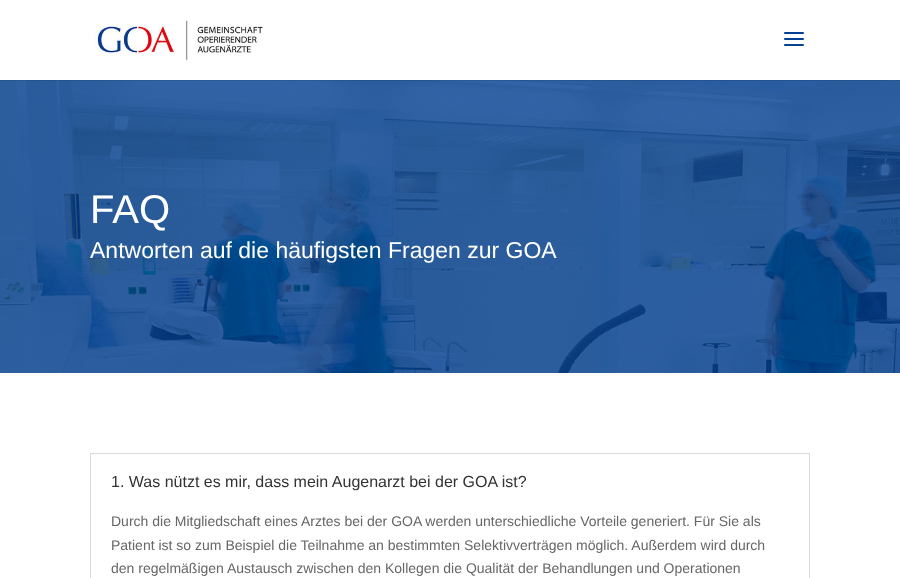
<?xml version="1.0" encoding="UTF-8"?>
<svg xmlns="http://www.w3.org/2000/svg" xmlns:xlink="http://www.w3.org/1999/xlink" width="900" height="578">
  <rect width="100%" height="100%" fill="#ffffff" />
  <image x="0" y="80" width="900" height="293" xlink:href="image3.png" />
  <rect y="80" width="900" height="1" fill="#000000" fill-opacity="0.1" />
  <image x="94" y="20" width="171" height="42" xlink:href="image1.png" />
  <image x="784" y="32" width="20" height="14" xlink:href="image2.png" />
  <rect x="90.5" y="453.5" width="719" height="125" fill="none" stroke="#d9d9d9" />
  <text x="90" y="223" style="font-family: Liberation Sans; font-size: 40px; fill: #ffffff">FAQ</text>
  <text x="90" y="258" style="font-family: Liberation Sans; font-size: 23px; fill: #ffffff">Antworten auf die häufigsten Fragen zur GOA</text>
  <text x="111" y="487" style="font-family: Liberation Sans; font-size: 16px; fill: #333333">1. Was nützt es mir, dass mein Augenarzt bei der GOA ist?</text>
  <text x="111" y="526" style="font-family: Liberation Sans; font-size: 14px; fill: #666666">Durch die Mitgliedschaft eines Arztes bei der GOA werden unterschiedliche Vorteile generiert. Für Sie als</text>
  <text x="111" y="550" style="font-family: Liberation Sans; font-size: 14px; fill: #666666">Patient ist so zum Beispiel die Teilnahme an bestimmten Selektivverträgen möglich. Außerdem wird durch</text>
  <text x="111" y="573" style="font-family: Liberation Sans; font-size: 14px; fill: #666666">den regelmäßigen Austausch zwischen den Kollegen die Qualität der Behandlungen und Operationen</text>
</svg>
